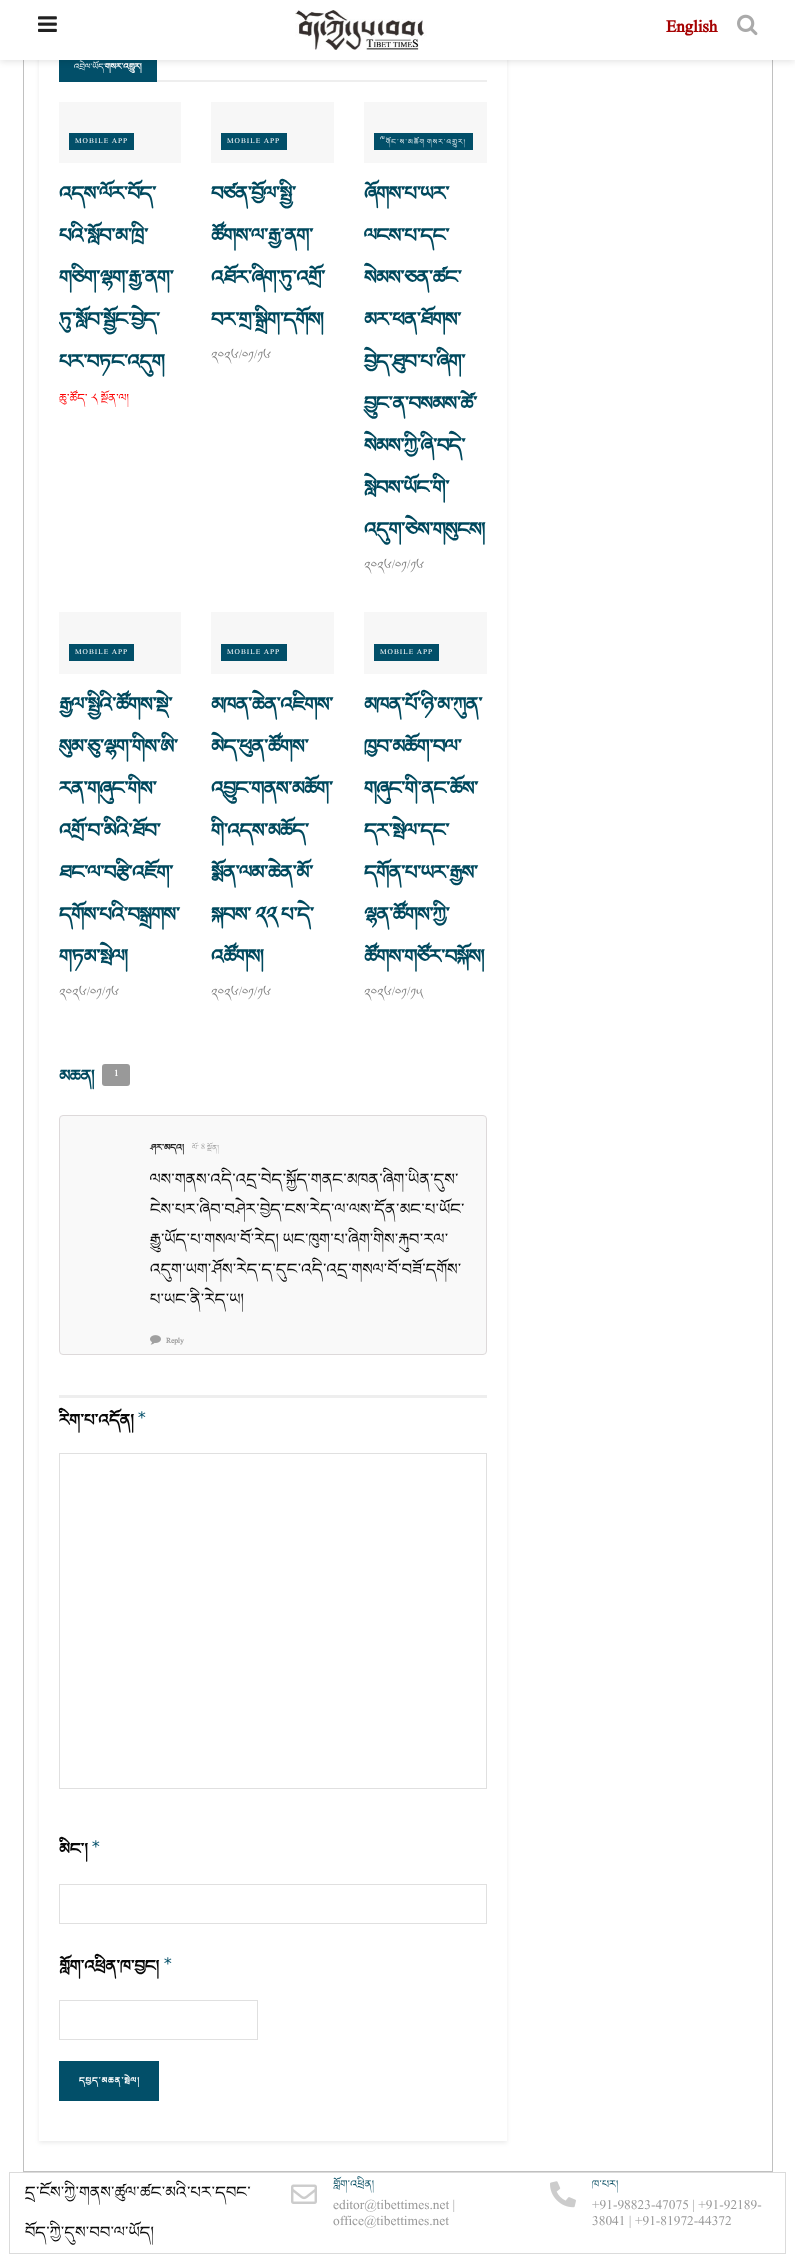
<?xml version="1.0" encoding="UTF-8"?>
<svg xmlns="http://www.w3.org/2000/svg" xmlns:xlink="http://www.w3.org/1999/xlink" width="795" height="2254">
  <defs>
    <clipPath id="clip1"><path d="M 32 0 h 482 v 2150 h -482 z m 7 -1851 h 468 v 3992 h -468 z" clip-rule="evenodd" /></clipPath>
    <clipPath id="clip2"><rect x="59" y="102" width="428" height="937" /></clipPath>
  </defs>
  <rect width="100%" height="100%" fill="#ffffff" />
  <rect x="23.5" y="-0.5" width="749" height="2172" fill="none" stroke="#c0c0c0" />
  <g clip-path="url(#clip1)">
    <rect x="39" y="-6" width="468" height="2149" fill="#000000" fill-opacity="0.08" filter="blur(2px)" />
  </g>
  <rect x="59" y="60" width="98" height="22" fill="#024f69" />
  <rect y="2" width="795" height="60" fill="#000000" fill-opacity="0.1" filter="blur(3px)" />
  <rect width="795" height="60" fill="#ffffff" />
  <image x="38" y="16" width="19" height="16" xlink:href="image1.png" />
  <image x="295" y="10" width="132" height="40" xlink:href="image2.png" />
  <image x="737" y="14" width="21" height="22" xlink:href="image3.png" />
  <rect x="157" y="80" width="330" height="2" fill="#eeeeee" />
  <rect x="59" y="102" width="122" height="61" fill="#f7f7f7" />
  <rect x="69" y="133" width="65" height="17" fill="#024f69" />
  <rect x="211" y="102" width="123" height="61" fill="#f7f7f7" />
  <rect x="221" y="133" width="66" height="17" fill="#024f69" />
  <rect x="364" y="102" width="123" height="61" fill="#f7f7f7" />
  <rect x="374" y="133" width="99" height="17" fill="#024f69" />
  <rect x="59" y="612" width="122" height="62" fill="#f7f7f7" />
  <rect x="69" y="644" width="65" height="17" fill="#024f69" />
  <rect x="211" y="612" width="123" height="62" fill="#f7f7f7" />
  <rect x="221" y="644" width="66" height="17" fill="#024f69" />
  <rect x="364" y="612" width="123" height="62" fill="#f7f7f7" />
  <rect x="374" y="644" width="65" height="17" fill="#024f69" />
  <rect x="102" y="1064" width="28" height="22" rx="3" fill="#999999" />
  <rect x="59.5" y="1115.5" width="427" height="239" rx="3.5" fill="#f9f9f9" stroke="#ddd9da" />
  <image x="150" y="1335" width="11" height="10" xlink:href="image4.png" />
  <rect x="59" y="1395" width="428" height="3" fill="#eeeeee" />
  <rect x="59.5" y="1453.5" width="427" height="335" fill="none" stroke="#e0e0e0" />
  <rect x="59.5" y="1884.5" width="427" height="39" fill="none" stroke="#e0e0e0" />
  <rect x="59.5" y="2000.5" width="198" height="39" fill="none" stroke="#e0e0e0" />
  <rect x="59" y="2061" width="100" height="40" fill="#024f69" />
  <rect x="9.5" y="2172.5" width="776" height="81" fill="none" stroke="#dbdbdb" />
  <image x="291" y="2184" width="26" height="20" xlink:href="image5.png" />
  <image x="550" y="2181" width="26" height="27" xlink:href="image6.png" />
  <text x="666" y="32" style="font-family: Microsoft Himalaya; font-size: 25px; font-weight: bold; fill: #a60202">English</text>
  <text x="74" y="68" style="font-family: Microsoft Himalaya; font-size: 13px; fill: #ffffff">འབྲེལ་ཡོད་</text>
  <text x="105" y="68" style="font-family: Microsoft Himalaya; font-size: 13px; font-weight: bold; fill: #ffffff">གསར་འགྱུར།</text>
  <text x="75" y="143" style="font-family: Microsoft Himalaya; font-size: 11px; letter-spacing: 1px; fill: #ffffff">MOBILE APP</text>
  <text x="59" y="197" style="font-family: Microsoft Himalaya; font-size: 30px; font-weight: bold; letter-spacing: -0.6px; fill: #00495e">འདས་ལོར་བོད་</text>
  <g clip-path="url(#clip2)">
    <text x="59" y="239" style="font-family: Microsoft Himalaya; font-size: 30px; font-weight: bold; letter-spacing: -0.6px; fill: #00495e">པའི་སློབ་མ་ཁྲི་</text>
    <text x="59" y="281" style="font-family: Microsoft Himalaya; font-size: 30px; font-weight: bold; letter-spacing: -0.6px; fill: #00495e">གཅིག་ལྷག་རྒྱ་ནག་</text>
    <text x="59" y="323" style="font-family: Microsoft Himalaya; font-size: 30px; font-weight: bold; letter-spacing: -0.6px; fill: #00495e">ཏུ་སློབ་སྦྱོང་བྱེད་</text>
  </g>
  <text x="59" y="365" style="font-family: Microsoft Himalaya; font-size: 30px; font-weight: bold; letter-spacing: -0.6px; fill: #00495e">པར་བཏང་འདུག</text>
  <text x="59" y="400" style="font-family: Microsoft Himalaya; font-size: 18px; fill: #fd0000">ཆུ་ཚོད་ ༨ སྔོན་ལ།</text>
  <text x="227" y="143" style="font-family: Microsoft Himalaya; font-size: 11px; letter-spacing: 1px; fill: #ffffff">MOBILE APP</text>
  <text x="211" y="197" style="font-family: Microsoft Himalaya; font-size: 30px; font-weight: bold; letter-spacing: -0.6px; fill: #00495e">བཙན་བྱོལ་སྤྱི་</text>
  <text x="211" y="239" style="font-family: Microsoft Himalaya; font-size: 30px; font-weight: bold; letter-spacing: -0.6px; fill: #00495e">ཚོགས་ལ་རྒྱ་ནག་</text>
  <text x="211" y="281" style="font-family: Microsoft Himalaya; font-size: 30px; font-weight: bold; letter-spacing: -0.6px; fill: #00495e">འཐོར་ཞིག་ཏུ་འགྲོ་</text>
  <text x="211" y="323" style="font-family: Microsoft Himalaya; font-size: 30px; font-weight: bold; letter-spacing: -0.6px; fill: #00495e">བར་གྲ་སྒྲིག་དགོས།</text>
  <text x="211" y="358" style="font-family: Microsoft Himalaya; font-size: 18px; fill: #848484">༢༠༢༦/༠༡/༡༦</text>
  <text x="380" y="143" word-spacing="-1" style="font-family: Microsoft Himalaya; font-size: 11px; letter-spacing: 1px; fill: #ffffff">༸གོང་ས་མཆོག གསར་འགྱུར།</text>
  <text x="364" y="197" style="font-family: Microsoft Himalaya; font-size: 30px; font-weight: bold; letter-spacing: -0.6px; fill: #00495e">ཞོགས་པ་ཡར་</text>
  <text x="364" y="239" style="font-family: Microsoft Himalaya; font-size: 30px; font-weight: bold; letter-spacing: -0.6px; fill: #00495e">ལངས་པ་དང་</text>
  <text x="364" y="281" style="font-family: Microsoft Himalaya; font-size: 30px; font-weight: bold; letter-spacing: -0.6px; fill: #00495e">སེམས་ཅན་ཚང་</text>
  <text x="364" y="323" style="font-family: Microsoft Himalaya; font-size: 30px; font-weight: bold; letter-spacing: -0.6px; fill: #00495e">མར་ཕན་ཐོགས་</text>
  <text x="364" y="365" style="font-family: Microsoft Himalaya; font-size: 30px; font-weight: bold; letter-spacing: -0.6px; fill: #00495e">བྱེད་ཐུབ་པ་ཞིག་</text>
  <text x="364" y="407" style="font-family: Microsoft Himalaya; font-size: 30px; font-weight: bold; letter-spacing: -0.6px; fill: #00495e">བྱུང་ན་བསམས་ཚེ་</text>
  <text x="364" y="449" style="font-family: Microsoft Himalaya; font-size: 30px; font-weight: bold; letter-spacing: -0.6px; fill: #00495e">སེམས་ཀྱི་ཞི་བདེ་</text>
  <text x="364" y="491" style="font-family: Microsoft Himalaya; font-size: 30px; font-weight: bold; letter-spacing: -0.6px; fill: #00495e">སླེབས་ཡོང་གི་</text>
  <text x="364" y="533" style="font-family: Microsoft Himalaya; font-size: 30px; font-weight: bold; letter-spacing: -0.6px; fill: #00495e">འདུག་ཅེས་གསུངས།</text>
  <text x="364" y="568" style="font-family: Microsoft Himalaya; font-size: 18px; fill: #848484">༢༠༢༦/༠༡/༡༦</text>
  <text x="75" y="654" style="font-family: Microsoft Himalaya; font-size: 11px; letter-spacing: 1px; fill: #ffffff">MOBILE APP</text>
  <text x="59" y="708" style="font-family: Microsoft Himalaya; font-size: 30px; font-weight: bold; letter-spacing: -0.6px; fill: #00495e">རྒྱལ་སྤྱིའི་ཚོགས་སྡེ་</text>
  <g clip-path="url(#clip2)">
    <text x="59" y="750" style="font-family: Microsoft Himalaya; font-size: 30px; font-weight: bold; letter-spacing: -0.6px; fill: #00495e">སུམ་ཅུ་ལྷག་གིས་ཨི་</text>
  </g>
  <text x="59" y="792" style="font-family: Microsoft Himalaya; font-size: 30px; font-weight: bold; letter-spacing: -0.6px; fill: #00495e">རན་གཞུང་གིས་</text>
  <text x="59" y="834" style="font-family: Microsoft Himalaya; font-size: 30px; font-weight: bold; letter-spacing: -0.6px; fill: #00495e">འགྲོ་བ་མིའི་ཐོབ་</text>
  <text x="59" y="876" style="font-family: Microsoft Himalaya; font-size: 30px; font-weight: bold; letter-spacing: -0.6px; fill: #00495e">ཐང་ལ་བརྩི་འཇོག་</text>
  <text x="59" y="918" style="font-family: Microsoft Himalaya; font-size: 30px; font-weight: bold; letter-spacing: -0.6px; fill: #00495e">དགོས་པའི་བསྒྲགས་</text>
  <text x="59" y="960" style="font-family: Microsoft Himalaya; font-size: 30px; font-weight: bold; letter-spacing: -0.6px; fill: #00495e">གཏམ་སྤེལ།</text>
  <text x="59" y="995" style="font-family: Microsoft Himalaya; font-size: 18px; fill: #848484">༢༠༢༦/༠༡/༡༦</text>
  <text x="227" y="654" style="font-family: Microsoft Himalaya; font-size: 11px; letter-spacing: 1px; fill: #ffffff">MOBILE APP</text>
  <text x="211" y="708" style="font-family: Microsoft Himalaya; font-size: 30px; font-weight: bold; letter-spacing: -0.6px; fill: #00495e">མཁན་ཆེན་འཇིགས་</text>
  <text x="211" y="750" style="font-family: Microsoft Himalaya; font-size: 30px; font-weight: bold; letter-spacing: -0.6px; fill: #00495e">མེད་ཕུན་ཚོགས་</text>
  <text x="211" y="792" style="font-family: Microsoft Himalaya; font-size: 30px; font-weight: bold; letter-spacing: -0.6px; fill: #00495e">འབྱུང་གནས་མཆོག་</text>
  <text x="211" y="834" style="font-family: Microsoft Himalaya; font-size: 30px; font-weight: bold; letter-spacing: -0.6px; fill: #00495e">གི་འདས་མཆོད་</text>
  <text x="211" y="876" style="font-family: Microsoft Himalaya; font-size: 30px; font-weight: bold; letter-spacing: -0.6px; fill: #00495e">སྨོན་ལམ་ཆེན་མོ་</text>
  <text x="211" y="918" style="font-family: Microsoft Himalaya; font-size: 30px; font-weight: bold; letter-spacing: -0.6px; fill: #00495e">སྐབས་ ༢༢ པ་དེ་</text>
  <text x="211" y="960" style="font-family: Microsoft Himalaya; font-size: 30px; font-weight: bold; letter-spacing: -0.6px; fill: #00495e">འཚོགས།</text>
  <text x="211" y="995" style="font-family: Microsoft Himalaya; font-size: 18px; fill: #848484">༢༠༢༦/༠༡/༡༦</text>
  <text x="380" y="654" style="font-family: Microsoft Himalaya; font-size: 11px; letter-spacing: 1px; fill: #ffffff">MOBILE APP</text>
  <text x="364" y="708" style="font-family: Microsoft Himalaya; font-size: 30px; font-weight: bold; letter-spacing: -0.6px; fill: #00495e">མཁན་པོ་ཉི་མ་ཀུན་</text>
  <text x="364" y="750" style="font-family: Microsoft Himalaya; font-size: 30px; font-weight: bold; letter-spacing: -0.6px; fill: #00495e">ཁྱབ་མཆོག་བལ་</text>
  <text x="364" y="792" style="font-family: Microsoft Himalaya; font-size: 30px; font-weight: bold; letter-spacing: -0.6px; fill: #00495e">གཞུང་གི་ནང་ཆོས་</text>
  <text x="364" y="834" style="font-family: Microsoft Himalaya; font-size: 30px; font-weight: bold; letter-spacing: -0.6px; fill: #00495e">དར་སྤེལ་དང་</text>
  <text x="364" y="876" style="font-family: Microsoft Himalaya; font-size: 30px; font-weight: bold; letter-spacing: -0.6px; fill: #00495e">དགོན་པ་ཡར་རྒྱས་</text>
  <text x="364" y="918" style="font-family: Microsoft Himalaya; font-size: 30px; font-weight: bold; letter-spacing: -0.6px; fill: #00495e">ལྷན་ཚོགས་ཀྱི་</text>
  <text x="364" y="960" style="font-family: Microsoft Himalaya; font-size: 30px; font-weight: bold; letter-spacing: -0.6px; fill: #00495e">ཚོགས་གཙོར་བསྐོས།</text>
  <text x="364" y="995" style="font-family: Microsoft Himalaya; font-size: 18px; fill: #848484">༢༠༢༦/༠༡/༡༥</text>
  <text x="59" y="1079" style="font-family: Microsoft Himalaya; font-size: 26px; font-weight: bold; letter-spacing: -0.5px; fill: #00495e">མཆན།</text>
  <text x="114" y="1076" style="font-family: Microsoft Himalaya; font-size: 13px; font-weight: bold; letter-spacing: -0.5px; fill: #ffffff">1</text>
  <text x="150" y="1149" style="font-family: Microsoft Himalaya; font-size: 14px; font-weight: bold; fill: #212121">ཤར་མདའ།</text>
  <text x="192" y="1149" style="font-family: Microsoft Himalaya; font-size: 12px; fill: #a0a0a0">ལོ་ 8 སྔོན།</text>
  <text x="150" y="1182" style="font-family: Microsoft Himalaya; font-size: 25px; fill: #090909">ལས་གནས་འདི་འདྲ་བེད་སྐྱོད་གནང་མཁན་ཞིག་ཡིན་དུས་</text>
  <text x="150" y="1212" style="font-family: Microsoft Himalaya; font-size: 25px; fill: #090909">ངེས་པར་ཞིབ་བཤེར་བྱེད་ངས་རེད་ལ་ལས་དོན་མང་པ་ཡོང་</text>
  <text x="150" y="1242" style="font-family: Microsoft Himalaya; font-size: 25px; fill: #090909">རྒྱུ་ཡོད་པ་གསལ་བོ་རེད། ཡང་ཁུག་པ་ཞིག་གིས་རྐུབ་རལ་</text>
  <text x="150" y="1272" style="font-family: Microsoft Himalaya; font-size: 25px; fill: #090909">འདུག་ཡག་ཤོས་རེད་ད་དུང་འདི་འདྲ་གསལ་བོ་བཟོ་དགོས་</text>
  <text x="150" y="1302" style="font-family: Microsoft Himalaya; font-size: 25px; fill: #090909">པ་ཡང་ནི་རེད་ཡ།</text>
  <text x="166" y="1343" style="font-family: Microsoft Himalaya; font-size: 11px; font-weight: bold; fill: #a0a0a0">Reply</text>
  <text x="59" y="1423" style="font-family: Microsoft Himalaya; font-size: 25px; font-weight: bold; fill: #090909">རིག་པ་འདོན།</text>
  <text x="137" y="1423" style="font-family: DejaVu Sans Mono; font-size: 16px; fill: #024f69">*</text>
  <text x="59" y="1852" style="font-family: Microsoft Himalaya; font-size: 25px; font-weight: bold; fill: #090909">མིང་།</text>
  <text x="91" y="1852" style="font-family: DejaVu Sans Mono; font-size: 16px; fill: #024f69">*</text>
  <text x="59" y="1969" style="font-family: Microsoft Himalaya; font-size: 25px; font-weight: bold; fill: #090909">གློག་འཕྲིན་ཁ་བྱང།</text>
  <text x="163" y="1969" style="font-family: DejaVu Sans Mono; font-size: 16px; fill: #024f69">*</text>
  <text x="79" y="2082" style="font-family: Microsoft Himalaya; font-size: 13px; font-weight: bold; letter-spacing: 1px; fill: #ffffff">དཔྱད་མཆན་སྤེལ།</text>
  <text x="25" y="2195" style="font-family: Microsoft Himalaya; font-size: 25px; fill: #090909">དྲ་ངོས་ཀྱི་གནས་ཚུལ་ཚང་མའི་པར་དབང་</text>
  <text x="25" y="2235" style="font-family: Microsoft Himalaya; font-size: 25px; fill: #090909">བོད་ཀྱི་དུས་བབ་ལ་ཡོད།</text>
  <text x="333" y="2186" style="font-family: Microsoft Himalaya; font-size: 17px; fill: #00495e">གློག་འཕྲིན།</text>
  <text x="333" y="2209" style="font-family: Microsoft Himalaya; font-size: 20px; fill: #999999">editor@tibettimes.net |</text>
  <text x="333" y="2225" style="font-family: Microsoft Himalaya; font-size: 20px; fill: #999999">office@tibettimes.net</text>
  <text x="592" y="2186" style="font-family: Microsoft Himalaya; font-size: 17px; fill: #00495e">ཁ་པར།</text>
  <text x="592" y="2209" style="font-family: Microsoft Himalaya; font-size: 20px; fill: #999999">+91-98823-47075 | +91-92189-</text>
  <text x="592" y="2225" style="font-family: Microsoft Himalaya; font-size: 20px; fill: #999999">38041 | +91-81972-44372</text>
</svg>
